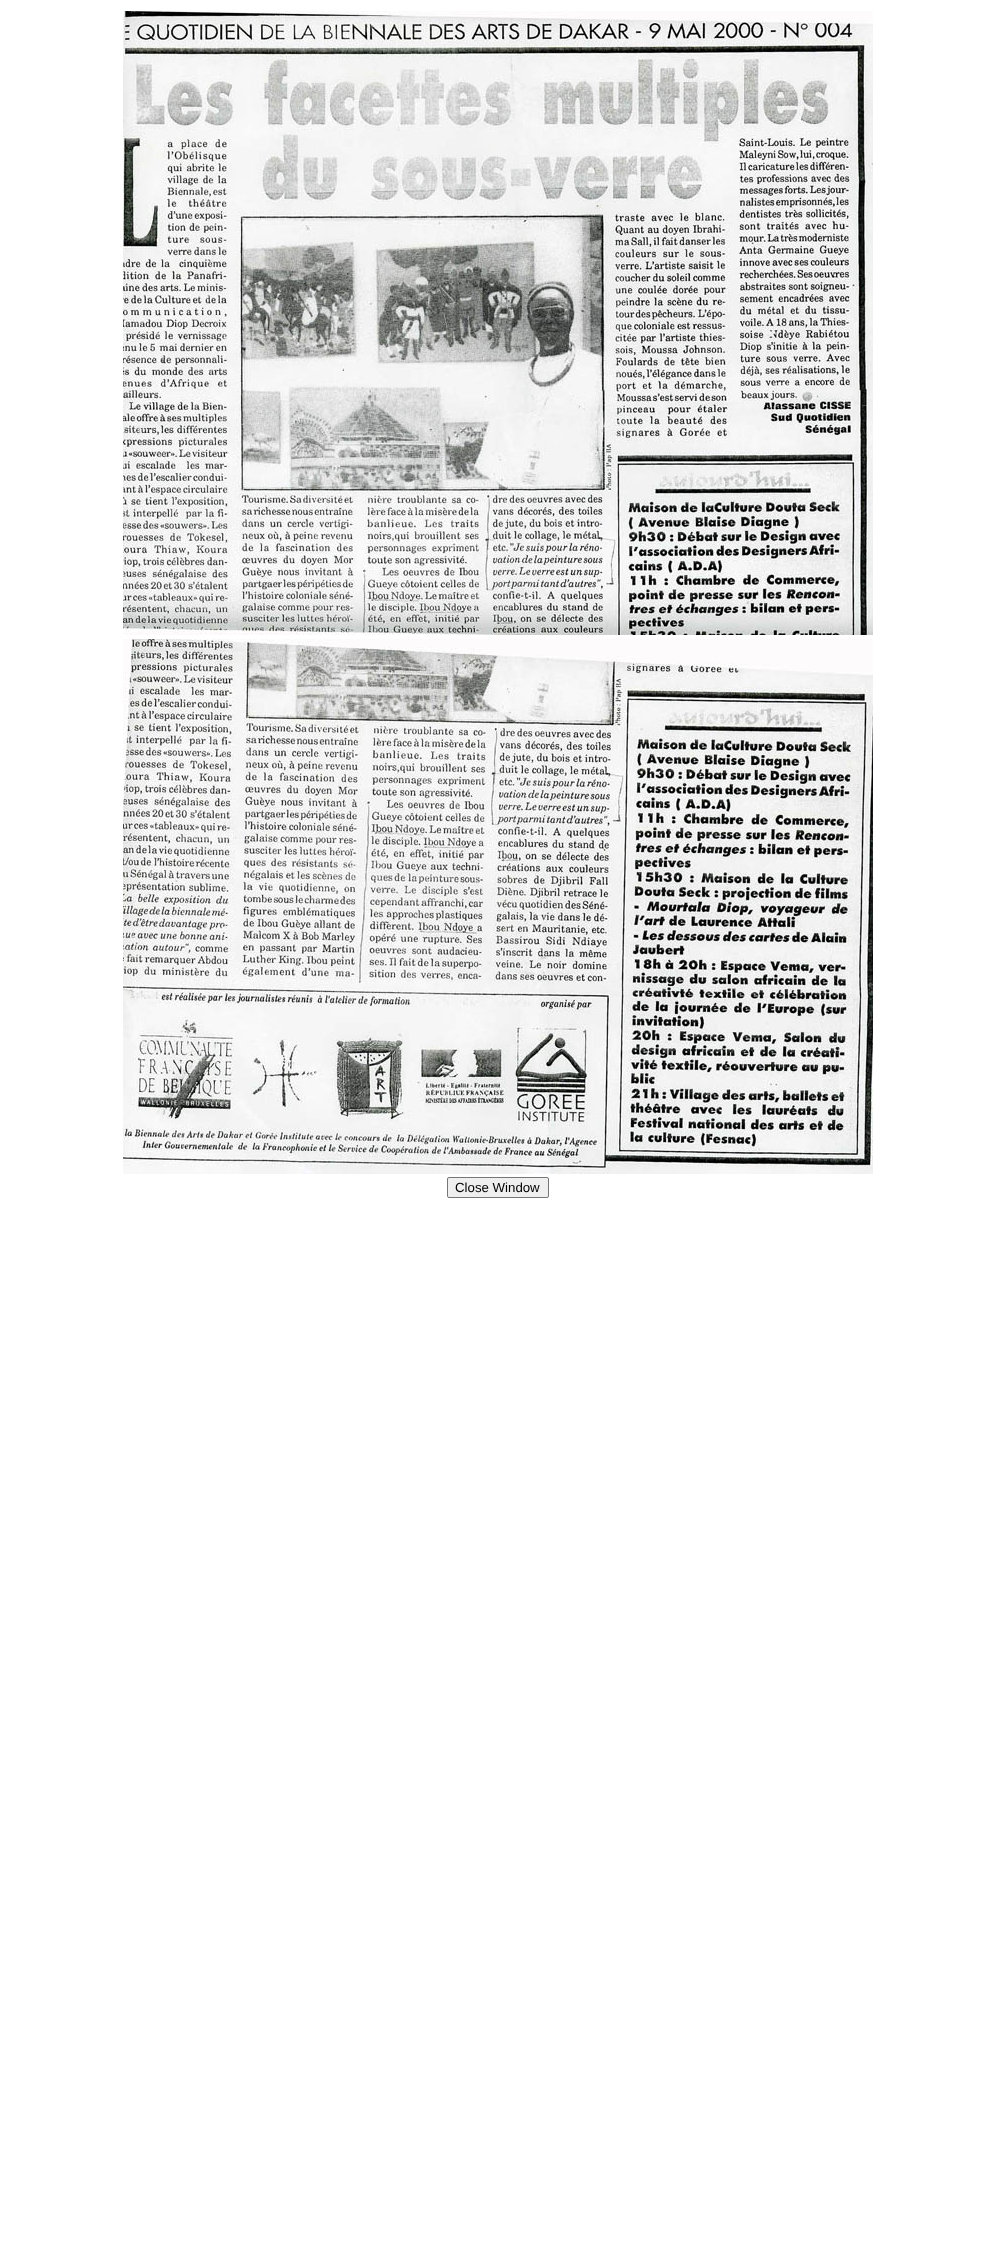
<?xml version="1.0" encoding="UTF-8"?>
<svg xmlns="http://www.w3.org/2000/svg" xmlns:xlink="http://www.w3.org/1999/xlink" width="996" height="2265">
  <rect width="100%" height="100%" fill="#ffffff" />
  <image x="123" y="11" width="750" height="624" xlink:href="image1.png" />
  <image x="123" y="639" width="750" height="535" xlink:href="image2.png" />
  <rect x="447.5" y="1177.5" width="101" height="20" rx="1.5" fill="#efefef" stroke="#767676" />
  <text x="455" y="1192" style="font-family: Liberation Sans; font-size: 13.25px; fill: #000000">Close Window</text>
</svg>
